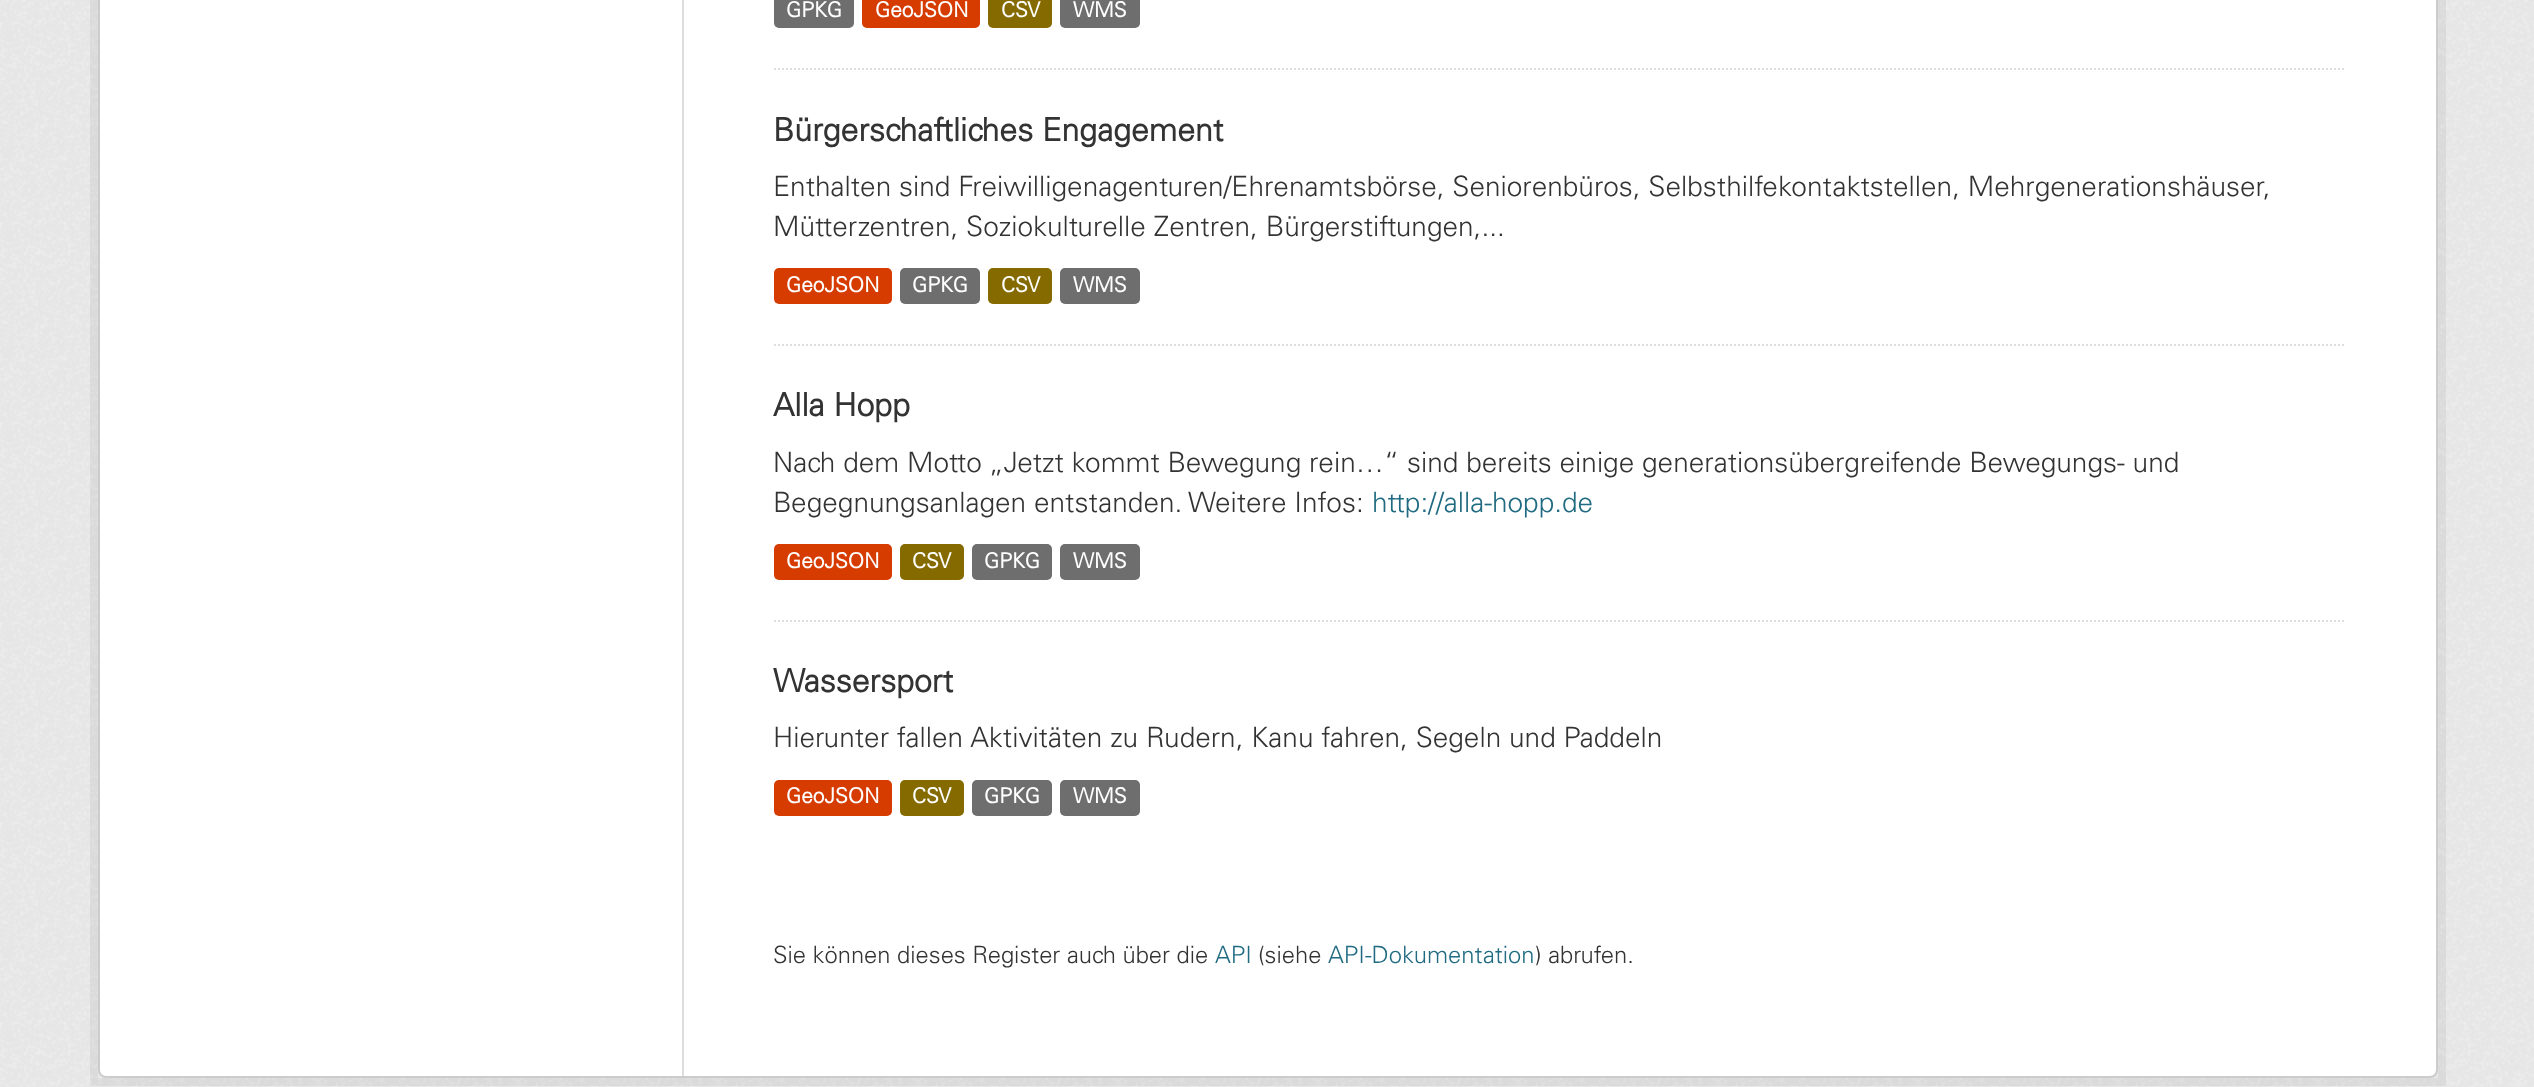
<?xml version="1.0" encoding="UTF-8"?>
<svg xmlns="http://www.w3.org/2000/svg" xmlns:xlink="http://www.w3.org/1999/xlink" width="2534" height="1087">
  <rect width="100%" height="100%" fill="#eeeeee" />
  <image x="0" y="0" width="2534" height="1087" xlink:href="image1.png" />
  <rect x="94" y="-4" width="2348" height="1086" fill="none" stroke="#000000" stroke-opacity="0.05" stroke-width="8" />
  <rect x="99" y="-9" width="2338" height="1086" rx="7" fill="#ffffff" stroke="#cccccc" stroke-width="2" />
  <rect x="682" width="2" height="1076" fill="#dddddd" />
  <path d="M 774 69 h 1572" fill="none" stroke="#dddddd" stroke-width="2" stroke-dasharray="2 2" />
  <rect x="774" y="-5" width="80" height="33" rx="5" fill="#6e6e6e" />
  <rect x="862" y="-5" width="118" height="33" rx="5" fill="#d63b00" />
  <rect x="988" y="-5" width="64" height="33" rx="5" fill="#856a00" />
  <rect x="1060" y="-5" width="80" height="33" rx="5" fill="#6e6e6e" />
  <path d="M 774 345 h 1572" fill="none" stroke="#dddddd" stroke-width="2" stroke-dasharray="2 2" />
  <rect x="774" y="268" width="118" height="36" rx="5" fill="#d63b00" />
  <rect x="900" y="268" width="80" height="36" rx="5" fill="#6e6e6e" />
  <rect x="988" y="268" width="64" height="36" rx="5" fill="#856a00" />
  <rect x="1060" y="268" width="80" height="36" rx="5" fill="#6e6e6e" />
  <path d="M 774 621 h 1572" fill="none" stroke="#dddddd" stroke-width="2" stroke-dasharray="2 2" />
  <rect x="774" y="544" width="118" height="36" rx="5" fill="#d63b00" />
  <rect x="900" y="544" width="64" height="36" rx="5" fill="#856a00" />
  <rect x="972" y="544" width="80" height="36" rx="5" fill="#6e6e6e" />
  <rect x="1060" y="544" width="80" height="36" rx="5" fill="#6e6e6e" />
  <rect x="774" y="780" width="118" height="36" rx="5" fill="#d63b00" />
  <rect x="900" y="780" width="64" height="36" rx="5" fill="#856a00" />
  <rect x="972" y="780" width="80" height="36" rx="5" fill="#6e6e6e" />
  <rect x="1060" y="780" width="80" height="36" rx="5" fill="#6e6e6e" />
  <text x="786" y="17" style="font-family: 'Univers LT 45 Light'; font-size: 21px; font-weight: bold; fill: #ffffff">GPKG</text>
  <text x="875" y="17" style="font-family: 'Univers LT 45 Light'; font-size: 21px; font-weight: bold; fill: #ffffff">GeoJSON</text>
  <text x="1001" y="17" style="font-family: 'Univers LT 45 Light'; font-size: 21px; font-weight: bold; fill: #ffffff">CSV</text>
  <text x="1073" y="17" style="font-family: 'Univers LT 45 Light'; font-size: 21px; font-weight: bold; fill: #ffffff">WMS</text>
  <text x="773" y="141" style="font-family: 'Univers LT 45 Light'; font-size: 32px; font-weight: bold; fill: #333333">Bürgerschaftliches Engagement</text>
  <text x="773" y="196" style="font-family: 'Univers LT 45 Light'; font-size: 28px; font-weight: 300; fill: #333333">Enthalten sind Freiwilligenagenturen/Ehrenamtsbörse, Seniorenbüros, Selbsthilfekontaktstellen, Mehrgenerationshäuser,</text>
  <text x="773" y="236" style="font-family: 'Univers LT 45 Light'; font-size: 28px; font-weight: 300; fill: #333333">Mütterzentren, Soziokulturelle Zentren, Bürgerstiftungen,...</text>
  <text x="786" y="292" style="font-family: 'Univers LT 45 Light'; font-size: 21px; font-weight: bold; fill: #ffffff">GeoJSON</text>
  <text x="912" y="292" style="font-family: 'Univers LT 45 Light'; font-size: 21px; font-weight: bold; fill: #ffffff">GPKG</text>
  <text x="1001" y="292" style="font-family: 'Univers LT 45 Light'; font-size: 21px; font-weight: bold; fill: #ffffff">CSV</text>
  <text x="1073" y="292" style="font-family: 'Univers LT 45 Light'; font-size: 21px; font-weight: bold; fill: #ffffff">WMS</text>
  <text x="773" y="416" style="font-family: 'Univers LT 45 Light'; font-size: 32px; font-weight: bold; fill: #333333">Alla Hopp</text>
  <text x="773" y="472" style="font-family: 'Univers LT 45 Light'; font-size: 28px; font-weight: 300; fill: #333333">Nach dem Motto „Jetzt kommt Bewegung rein…“ sind bereits einige generationsübergreifende Bewegungs- und</text>
  <text x="773" y="512" style="font-family: 'Univers LT 45 Light'; font-size: 28px; font-weight: 300; fill: #333333">Begegnungsanlagen entstanden. Weitere Infos:</text>
  <text x="1372" y="512" style="font-family: 'Univers LT 45 Light'; font-size: 28px; font-weight: 300; fill: #206b82">http://alla-hopp.de</text>
  <text x="786" y="568" style="font-family: 'Univers LT 45 Light'; font-size: 21px; font-weight: bold; fill: #ffffff">GeoJSON</text>
  <text x="912" y="568" style="font-family: 'Univers LT 45 Light'; font-size: 21px; font-weight: bold; fill: #ffffff">CSV</text>
  <text x="984" y="568" style="font-family: 'Univers LT 45 Light'; font-size: 21px; font-weight: bold; fill: #ffffff">GPKG</text>
  <text x="1073" y="568" style="font-family: 'Univers LT 45 Light'; font-size: 21px; font-weight: bold; fill: #ffffff">WMS</text>
  <text x="773" y="692" style="font-family: 'Univers LT 45 Light'; font-size: 32px; font-weight: bold; fill: #333333">Wassersport</text>
  <text x="773" y="747" style="font-family: 'Univers LT 45 Light'; font-size: 28px; font-weight: 300; fill: #333333">Hierunter fallen Aktivitäten zu Rudern, Kanu fahren, Segeln und Paddeln</text>
  <text x="786" y="803" style="font-family: 'Univers LT 45 Light'; font-size: 21px; font-weight: bold; fill: #ffffff">GeoJSON</text>
  <text x="912" y="803" style="font-family: 'Univers LT 45 Light'; font-size: 21px; font-weight: bold; fill: #ffffff">CSV</text>
  <text x="984" y="803" style="font-family: 'Univers LT 45 Light'; font-size: 21px; font-weight: bold; fill: #ffffff">GPKG</text>
  <text x="1073" y="803" style="font-family: 'Univers LT 45 Light'; font-size: 21px; font-weight: bold; fill: #ffffff">WMS</text>
  <text x="773" y="963" style="font-family: 'Univers LT 45 Light'; font-size: 23.75px; font-weight: 300; fill: #333333">Sie können dieses Register auch über die</text>
  <text x="1215" y="963" style="font-family: 'Univers LT 45 Light'; font-size: 23.75px; font-weight: 300; fill: #206b82">API</text>
  <text x="1258" y="963" style="font-family: 'Univers LT 45 Light'; font-size: 23.75px; font-weight: 300; fill: #333333">(siehe</text>
  <text x="1328" y="963" style="font-family: 'Univers LT 45 Light'; font-size: 23.75px; font-weight: 300; fill: #206b82">API-Dokumentation</text>
  <text x="1535" y="963" style="font-family: 'Univers LT 45 Light'; font-size: 23.75px; font-weight: 300; fill: #333333">) abrufen.</text>
</svg>
